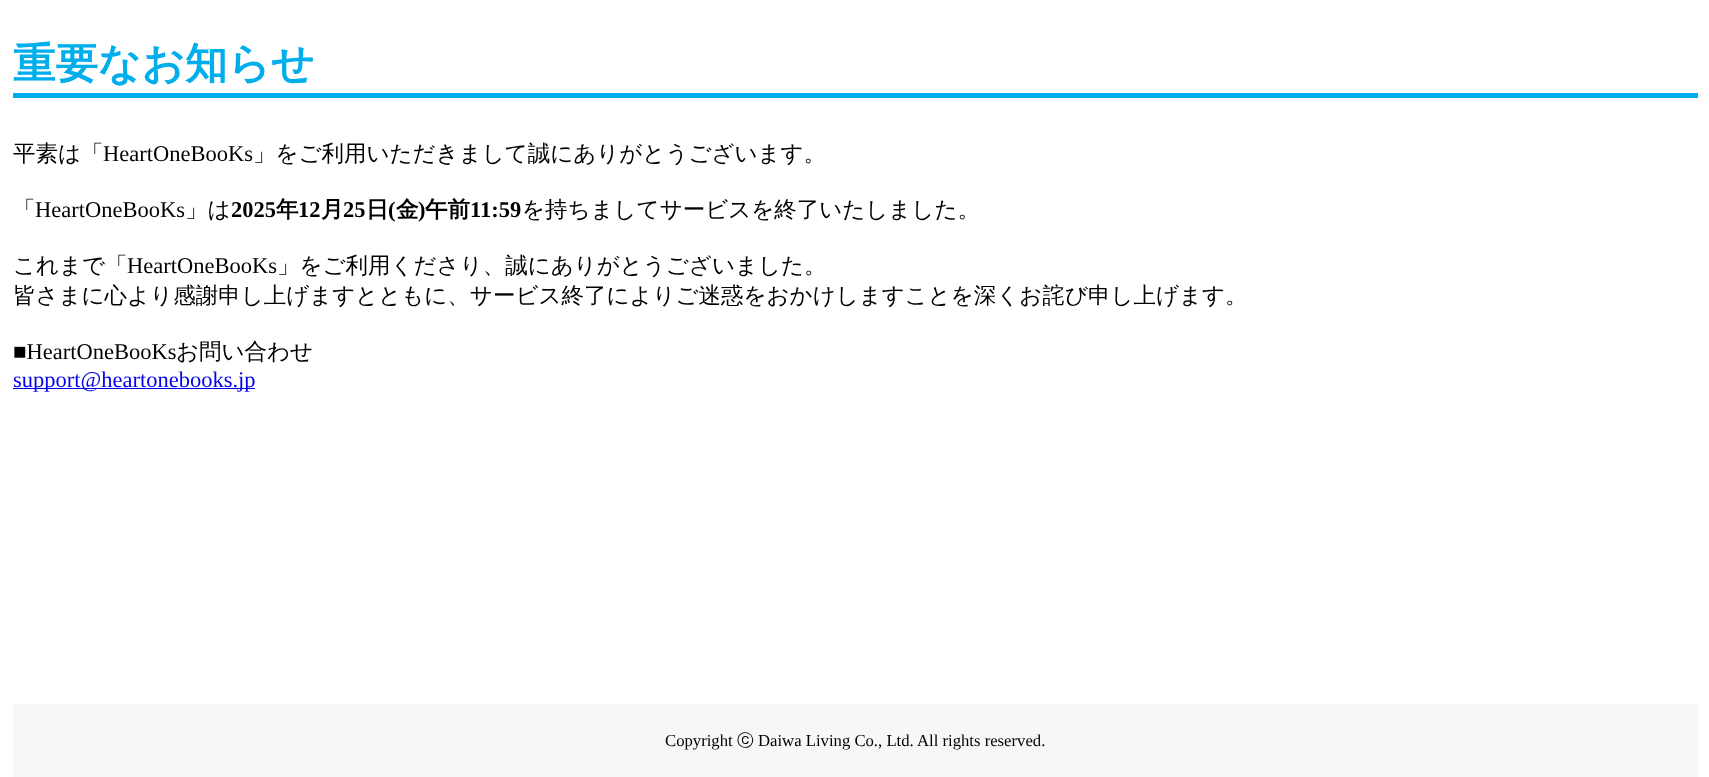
<?xml version="1.0" encoding="UTF-8"?>
<svg xmlns="http://www.w3.org/2000/svg" xmlns:xlink="http://www.w3.org/1999/xlink" width="1709" height="777">
  <rect width="100%" height="100%" fill="#ffffff" />
  <rect x="13" y="93" width="1685" height="5" fill="#00aeeb" />
  <rect x="13" y="388" width="242" height="1" fill="#0000ee" />
  <rect x="13" y="704" width="1685" height="73" fill="#f7f7f7" />
  <text x="13" y="78" style="font-family: WenQuanYi Zen Hei; font-size: 42.5px; font-weight: bold; fill: #00aeeb">重要なお知らせ</text>
  <text x="13" y="161" style="font-family: WenQuanYi Zen Hei; font-size: 22.5px; font-weight: 500; fill: #000000">平素は「</text>
  <text x="103" y="161" style="font-family: Liberation Serif; font-size: 22.5px; fill: #000000">HeartOneBooKs</text>
  <text x="253" y="161" style="font-family: WenQuanYi Zen Hei; font-size: 22.5px; font-weight: 500; fill: #000000">」をご利用いただきまして誠にありがとうございます。</text>
  <text x="13" y="217" style="font-family: WenQuanYi Zen Hei; font-size: 22.5px; font-weight: 500; fill: #000000">「</text>
  <text x="35" y="217" style="font-family: Liberation Serif; font-size: 22.5px; fill: #000000">HeartOneBooKs</text>
  <text x="185" y="217" style="font-family: WenQuanYi Zen Hei; font-size: 22.5px; font-weight: 500; fill: #000000">」は</text>
  <text x="231" y="217" style="font-family: Liberation Serif; font-size: 22.5px; font-weight: bold; fill: #000000">2025</text>
  <text x="276" y="217" style="font-family: WenQuanYi Zen Hei; font-size: 22.5px; font-weight: bold; fill: #000000">年</text>
  <text x="298" y="217" style="font-family: Liberation Serif; font-size: 22.5px; font-weight: bold; fill: #000000">12</text>
  <text x="321" y="217" style="font-family: WenQuanYi Zen Hei; font-size: 22.5px; font-weight: bold; fill: #000000">月</text>
  <text x="343" y="217" style="font-family: Liberation Serif; font-size: 22.5px; font-weight: bold; fill: #000000">25</text>
  <text x="366" y="217" style="font-family: WenQuanYi Zen Hei; font-size: 22.5px; font-weight: bold; fill: #000000">日</text>
  <text x="388" y="217" style="font-family: Liberation Serif; font-size: 22.5px; font-weight: bold; fill: #000000">(</text>
  <text x="396" y="217" style="font-family: WenQuanYi Zen Hei; font-size: 22.5px; font-weight: bold; fill: #000000">金</text>
  <text x="418" y="217" style="font-family: Liberation Serif; font-size: 22.5px; font-weight: bold; fill: #000000">)</text>
  <text x="425" y="217" style="font-family: WenQuanYi Zen Hei; font-size: 22.5px; font-weight: bold; fill: #000000">午前</text>
  <text x="470" y="217" style="font-family: Liberation Serif; font-size: 22.5px; font-weight: bold; fill: #000000">11:59</text>
  <text x="522" y="217" style="font-family: WenQuanYi Zen Hei; font-size: 22.5px; font-weight: 500; fill: #000000">を持ちましてサービスを終了いたしました。</text>
  <text x="13" y="273" style="font-family: WenQuanYi Zen Hei; font-size: 22.5px; font-weight: 500; fill: #000000">これまで「</text>
  <text x="127" y="273" style="font-family: Liberation Serif; font-size: 22.5px; fill: #000000">HeartOneBooKs</text>
  <text x="277" y="273" style="font-family: WenQuanYi Zen Hei; font-size: 22.5px; font-weight: 500; fill: #000000">」をご利用くださり、誠にありがとうございました。</text>
  <text x="13" y="303" style="font-family: WenQuanYi Zen Hei; font-size: 22.5px; font-weight: 500; fill: #000000">皆さまに心より感謝申し上げますとともに、サービス終了によりご迷惑をおかけしますことを深くお詫び申し上げます。</text>
  <text x="13" y="359" style="font-family: Liberation Serif; font-size: 22.5px; fill: #000000">■HeartOneBooKs</text>
  <text x="176" y="359" style="font-family: WenQuanYi Zen Hei; font-size: 22.5px; font-weight: 500; fill: #000000">お問い合わせ</text>
  <text x="13" y="387" style="font-family: Liberation Serif; font-size: 22.5px; fill: #0000ee">support@heartonebooks.jp</text>
  <text x="665" y="746" style="font-family: Liberation Serif; font-size: 16.7px; fill: #000000">Copyright</text>
  <text x="737" y="746" style="font-family: WenQuanYi Zen Hei; font-size: 16.7px; font-weight: 500; fill: #000000">ⓒ</text>
  <text x="758" y="746" style="font-family: Liberation Serif; font-size: 16.7px; fill: #000000">Daiwa Living Co., Ltd. All rights reserved.</text>
</svg>
